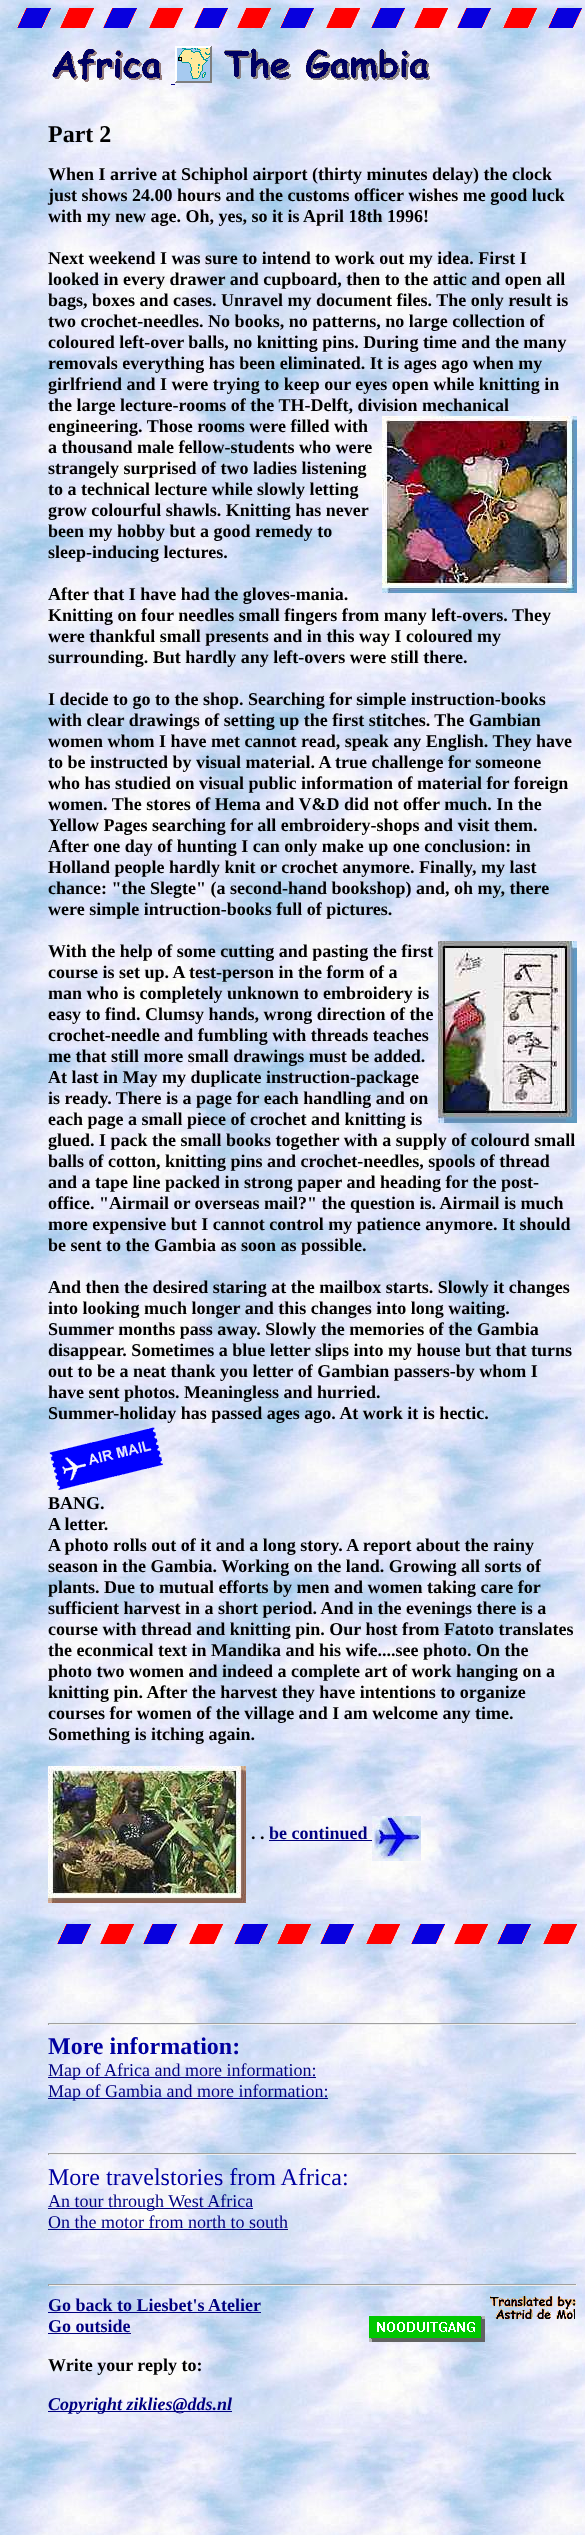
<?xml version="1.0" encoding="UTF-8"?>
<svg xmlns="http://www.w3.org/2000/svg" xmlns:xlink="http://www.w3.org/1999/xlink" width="585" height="2535">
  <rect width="100%" height="100%" fill="#ffffff" />
  <image x="0" y="0" width="585" height="2535" xlink:href="image1.png" />
  <image x="17" y="8" width="565" height="20" xlink:href="image2.png" />
  <image x="52" y="49" width="110" height="33" xlink:href="image3.png" />
  <image x="175" y="46" width="37" height="37" xlink:href="image4.png" />
  <image x="224" y="48" width="206" height="33" xlink:href="image5.png" />
  <rect x="171" y="84" width="4" height="1" fill="#000080" />
  <image x="382" y="416" width="195" height="177" xlink:href="image6.png" />
  <image x="438" y="941" width="139" height="182" xlink:href="image7.png" />
  <image x="49" y="1427" width="114" height="63" xlink:href="image8.png" />
  <image x="48" y="1766" width="198" height="137" xlink:href="image9.png" />
  <rect x="269" y="1840" width="103" height="1" fill="#000080" />
  <image x="372" y="1816" width="49" height="45" xlink:href="image10.png" />
  <image x="57" y="1924" width="520" height="20" xlink:href="image11.png" />
  <rect x="48" y="2023" width="529" height="1" fill="#9f9f9f" />
  <rect x="576" y="2023" width="1" height="2" fill="#eeeeee" />
  <rect x="48" y="2024" width="529" height="1" fill="#eeeeee" />
  <rect x="48" y="2023" width="1" height="2" fill="#9f9f9f" />
  <rect x="48" y="2077" width="268" height="1" fill="#000080" />
  <rect x="48" y="2098" width="280" height="1" fill="#000080" />
  <rect x="48" y="2153" width="529" height="1" fill="#9f9f9f" />
  <rect x="576" y="2153" width="1" height="2" fill="#eeeeee" />
  <rect x="48" y="2154" width="529" height="1" fill="#eeeeee" />
  <rect x="48" y="2153" width="1" height="2" fill="#9f9f9f" />
  <rect x="48" y="2208" width="205" height="1" fill="#000080" />
  <rect x="48" y="2229" width="240" height="1" fill="#000080" />
  <rect x="48" y="2284" width="529" height="1" fill="#9f9f9f" />
  <rect x="576" y="2284" width="1" height="2" fill="#eeeeee" />
  <rect x="48" y="2285" width="529" height="1" fill="#eeeeee" />
  <rect x="48" y="2284" width="1" height="2" fill="#9f9f9f" />
  <rect x="48" y="2312" width="213" height="1" fill="#000080" />
  <image x="490" y="2296" width="86" height="23" xlink:href="image12.png" />
  <rect x="48" y="2333" width="83" height="1" fill="#000080" />
  <image x="369" y="2316" width="116" height="26" xlink:href="image13.png" />
  <rect x="48" y="2411" width="184" height="1" fill="#000080" />
  <text x="48" y="142" style="font-family: Liberation Serif; font-size: 24px; font-weight: bold; fill: #000000">Part 2</text>
  <text x="48" y="180" style="font-family: Liberation Serif; font-size: 18px; font-weight: bold; fill: #000000">When I arrive at Schiphol airport (thirty minutes delay) the clock</text>
  <text x="48" y="201" style="font-family: Liberation Serif; font-size: 18px; font-weight: bold; fill: #000000">just shows 24.00 hours and the customs officer wishes me good luck</text>
  <text x="48" y="222" style="font-family: Liberation Serif; font-size: 18px; font-weight: bold; fill: #000000">with my new age. Oh, yes, so it is April 18th 1996!</text>
  <text x="48" y="264" style="font-family: Liberation Serif; font-size: 18px; font-weight: bold; fill: #000000">Next weekend I was sure to intend to work out my idea. First I</text>
  <text x="48" y="285" style="font-family: Liberation Serif; font-size: 18px; font-weight: bold; fill: #000000">looked in every drawer and cupboard, then to the attic and open all</text>
  <text x="48" y="306" style="font-family: Liberation Serif; font-size: 18px; font-weight: bold; fill: #000000">bags, boxes and cases. Unravel my document files. The only result is</text>
  <text x="48" y="327" style="font-family: Liberation Serif; font-size: 18px; font-weight: bold; fill: #000000">two crochet-needles. No books, no patterns, no large collection of</text>
  <text x="48" y="348" style="font-family: Liberation Serif; font-size: 18px; font-weight: bold; fill: #000000">coloured left-over balls, no knitting pins. During time and the many</text>
  <text x="48" y="369" style="font-family: Liberation Serif; font-size: 18px; font-weight: bold; fill: #000000">removals everything has been eliminated. It is ages ago when my</text>
  <text x="48" y="390" style="font-family: Liberation Serif; font-size: 18px; font-weight: bold; fill: #000000">girlfriend and I were trying to keep our eyes open while knitting in</text>
  <text x="48" y="411" style="font-family: Liberation Serif; font-size: 18px; font-weight: bold; fill: #000000">the large lecture-rooms of the TH-Delft, division mechanical</text>
  <text x="48" y="432" style="font-family: Liberation Serif; font-size: 18px; font-weight: bold; fill: #000000">engineering. Those rooms were filled with</text>
  <text x="48" y="453" style="font-family: Liberation Serif; font-size: 18px; font-weight: bold; fill: #000000">a thousand male fellow-students who were</text>
  <text x="48" y="474" style="font-family: Liberation Serif; font-size: 18px; font-weight: bold; fill: #000000">strangely surprised of two ladies listening</text>
  <text x="48" y="495" style="font-family: Liberation Serif; font-size: 18px; font-weight: bold; fill: #000000">to a technical lecture while slowly letting</text>
  <text x="48" y="516" style="font-family: Liberation Serif; font-size: 18px; font-weight: bold; fill: #000000">grow colourful shawls. Knitting has never</text>
  <text x="48" y="537" style="font-family: Liberation Serif; font-size: 18px; font-weight: bold; fill: #000000">been my hobby but a good remedy to</text>
  <text x="48" y="558" style="font-family: Liberation Serif; font-size: 18px; font-weight: bold; fill: #000000">sleep-inducing lectures.</text>
  <text x="48" y="600" style="font-family: Liberation Serif; font-size: 18px; font-weight: bold; fill: #000000">After that I have had the gloves-mania.</text>
  <text x="48" y="621" style="font-family: Liberation Serif; font-size: 18px; font-weight: bold; fill: #000000">Knitting on four needles small fingers from many left-overs. They</text>
  <text x="48" y="642" style="font-family: Liberation Serif; font-size: 18px; font-weight: bold; fill: #000000">were thankful small presents and in this way I coloured my</text>
  <text x="48" y="663" style="font-family: Liberation Serif; font-size: 18px; font-weight: bold; fill: #000000">surrounding. But hardly any left-overs were still there.</text>
  <text x="48" y="705" style="font-family: Liberation Serif; font-size: 18px; font-weight: bold; fill: #000000">I decide to go to the shop. Searching for simple instruction-books</text>
  <text x="48" y="726" style="font-family: Liberation Serif; font-size: 18px; font-weight: bold; fill: #000000">with clear drawings of setting up the first stitches. The Gambian</text>
  <text x="48" y="747" style="font-family: Liberation Serif; font-size: 18px; font-weight: bold; fill: #000000">women whom I have met cannot read, speak any English. They have</text>
  <text x="48" y="768" style="font-family: Liberation Serif; font-size: 18px; font-weight: bold; fill: #000000">to be instructed by visual material. A true challenge for someone</text>
  <text x="48" y="789" style="font-family: Liberation Serif; font-size: 18px; font-weight: bold; fill: #000000">who has studied on visual public information of material for foreign</text>
  <text x="48" y="810" style="font-family: Liberation Serif; font-size: 18px; font-weight: bold; fill: #000000">women. The stores of Hema and V&amp;D did not offer much. In the</text>
  <text x="48" y="831" style="font-family: Liberation Serif; font-size: 18px; font-weight: bold; fill: #000000">Yellow Pages searching for all embroidery-shops and visit them.</text>
  <text x="48" y="852" style="font-family: Liberation Serif; font-size: 18px; font-weight: bold; fill: #000000">After one day of hunting I can only make up one conclusion: in</text>
  <text x="48" y="873" style="font-family: Liberation Serif; font-size: 18px; font-weight: bold; fill: #000000">Holland people hardly knit or crochet anymore. Finally, my last</text>
  <text x="48" y="894" style="font-family: Liberation Serif; font-size: 18px; font-weight: bold; fill: #000000">chance: "the Slegte" (a second-hand bookshop) and, oh my, there</text>
  <text x="48" y="915" style="font-family: Liberation Serif; font-size: 18px; font-weight: bold; fill: #000000">were simple intruction-books full of pictures.</text>
  <text x="48" y="957" style="font-family: Liberation Serif; font-size: 18px; font-weight: bold; fill: #000000">With the help of some cutting and pasting the first</text>
  <text x="48" y="978" style="font-family: Liberation Serif; font-size: 18px; font-weight: bold; fill: #000000">course is set up. A test-person in the form of a</text>
  <text x="48" y="999" style="font-family: Liberation Serif; font-size: 18px; font-weight: bold; fill: #000000">man who is completely unknown to embroidery is</text>
  <text x="48" y="1020" style="font-family: Liberation Serif; font-size: 18px; font-weight: bold; fill: #000000">easy to find. Clumsy hands, wrong direction of the</text>
  <text x="48" y="1041" style="font-family: Liberation Serif; font-size: 18px; font-weight: bold; fill: #000000">crochet-needle and fumbling with threads teaches</text>
  <text x="48" y="1062" style="font-family: Liberation Serif; font-size: 18px; font-weight: bold; fill: #000000">me that still more small drawings must be added.</text>
  <text x="48" y="1083" style="font-family: Liberation Serif; font-size: 18px; font-weight: bold; fill: #000000">At last in May my duplicate instruction-package</text>
  <text x="48" y="1104" style="font-family: Liberation Serif; font-size: 18px; font-weight: bold; fill: #000000">is ready. There is a page for each handling and on</text>
  <text x="48" y="1125" style="font-family: Liberation Serif; font-size: 18px; font-weight: bold; fill: #000000">each page a small piece of crochet and knitting is</text>
  <text x="48" y="1146" style="font-family: Liberation Serif; font-size: 18px; font-weight: bold; fill: #000000">glued. I pack the small books together with a supply of colourd small</text>
  <text x="48" y="1167" style="font-family: Liberation Serif; font-size: 18px; font-weight: bold; fill: #000000">balls of cotton, knitting pins and crochet-needles, spools of thread</text>
  <text x="48" y="1188" style="font-family: Liberation Serif; font-size: 18px; font-weight: bold; fill: #000000">and a tape line packed in strong paper and heading for the post-</text>
  <text x="48" y="1209" style="font-family: Liberation Serif; font-size: 18px; font-weight: bold; fill: #000000">office. "Airmail or overseas mail?" the question is. Airmail is much</text>
  <text x="48" y="1230" style="font-family: Liberation Serif; font-size: 18px; font-weight: bold; fill: #000000">more expensive but I cannot control my patience anymore. It should</text>
  <text x="48" y="1251" style="font-family: Liberation Serif; font-size: 18px; font-weight: bold; fill: #000000">be sent to the Gambia as soon as possible.</text>
  <text x="48" y="1293" style="font-family: Liberation Serif; font-size: 18px; font-weight: bold; fill: #000000">And then the desired staring at the mailbox starts. Slowly it changes</text>
  <text x="48" y="1314" style="font-family: Liberation Serif; font-size: 18px; font-weight: bold; fill: #000000">into looking much longer and this changes into long waiting.</text>
  <text x="48" y="1335" style="font-family: Liberation Serif; font-size: 18px; font-weight: bold; fill: #000000">Summer months pass away. Slowly the memories of the Gambia</text>
  <text x="48" y="1356" style="font-family: Liberation Serif; font-size: 18px; font-weight: bold; fill: #000000">disappear. Sometimes a blue letter slips into my house but that turns</text>
  <text x="48" y="1377" style="font-family: Liberation Serif; font-size: 18px; font-weight: bold; fill: #000000">out to be a neat thank you letter of Gambian passers-by whom I</text>
  <text x="48" y="1398" style="font-family: Liberation Serif; font-size: 18px; font-weight: bold; fill: #000000">have sent photos. Meaningless and hurried.</text>
  <text x="48" y="1419" style="font-family: Liberation Serif; font-size: 18px; font-weight: bold; fill: #000000">Summer-holiday has passed ages ago. At work it is hectic.</text>
  <text x="48" y="1509" style="font-family: Liberation Serif; font-size: 18px; font-weight: bold; fill: #000000">BANG.</text>
  <text x="48" y="1530" style="font-family: Liberation Serif; font-size: 18px; font-weight: bold; fill: #000000">A letter.</text>
  <text x="48" y="1551" style="font-family: Liberation Serif; font-size: 18px; font-weight: bold; fill: #000000">A photo rolls out of it and a long story. A report about the rainy</text>
  <text x="48" y="1572" style="font-family: Liberation Serif; font-size: 18px; font-weight: bold; fill: #000000">season in the Gambia. Working on the land. Growing all sorts of</text>
  <text x="48" y="1593" style="font-family: Liberation Serif; font-size: 18px; font-weight: bold; fill: #000000">plants. Due to mutual efforts by men and women taking care for</text>
  <text x="48" y="1614" style="font-family: Liberation Serif; font-size: 18px; font-weight: bold; fill: #000000">sufficient harvest in a short period. And in the evenings there is a</text>
  <text x="48" y="1635" style="font-family: Liberation Serif; font-size: 18px; font-weight: bold; fill: #000000">course with thread and knitting pin. Our host from Fatoto translates</text>
  <text x="48" y="1656" style="font-family: Liberation Serif; font-size: 18px; font-weight: bold; fill: #000000">the econmical text in Mandika and his wife....see photo. On the</text>
  <text x="48" y="1677" style="font-family: Liberation Serif; font-size: 18px; font-weight: bold; fill: #000000">photo two women and indeed a complete art of work hanging on a</text>
  <text x="48" y="1698" style="font-family: Liberation Serif; font-size: 18px; font-weight: bold; fill: #000000">knitting pin. After the harvest they have intentions to organize</text>
  <text x="48" y="1719" style="font-family: Liberation Serif; font-size: 18px; font-weight: bold; fill: #000000">courses for women of the village and I am welcome any time.</text>
  <text x="48" y="1740" style="font-family: Liberation Serif; font-size: 18px; font-weight: bold; fill: #000000">Something is itching again.</text>
  <text x="251" y="1839" style="font-family: Liberation Serif; font-size: 18px; font-weight: bold; fill: #000000">. .</text>
  <text x="269" y="1839" style="font-family: Liberation Serif; font-size: 18px; font-weight: bold; fill: #000080">be continued</text>
  <text x="48" y="2054" style="font-family: Liberation Serif; font-size: 24px; font-weight: bold; fill: #0000a0">More information:</text>
  <text x="48" y="2076" style="font-family: Liberation Serif; font-size: 18px; fill: #000080">Map of Africa and more information:</text>
  <text x="48" y="2097" style="font-family: Liberation Serif; font-size: 18px; fill: #000080">Map of Gambia and more information:</text>
  <text x="48" y="2185" style="font-family: Liberation Serif; font-size: 24px; fill: #0000a0">More travelstories from Africa:</text>
  <text x="48" y="2207" style="font-family: Liberation Serif; font-size: 18px; fill: #000080">An tour through West Africa</text>
  <text x="48" y="2228" style="font-family: Liberation Serif; font-size: 18px; fill: #000080">On the motor from north to south</text>
  <text x="48" y="2311" style="font-family: Liberation Serif; font-size: 18px; font-weight: bold; fill: #000080">Go back to Liesbet's Atelier</text>
  <text x="48" y="2332" style="font-family: Liberation Serif; font-size: 18px; font-weight: bold; fill: #000080">Go outside</text>
  <text x="48" y="2371" style="font-family: Liberation Serif; font-size: 18px; font-weight: bold; fill: #000000">Write your reply to:</text>
  <text x="48" y="2410" style="font-family: Liberation Serif; font-size: 18px; font-weight: bold; font-style: italic; fill: #000080">Copyright ziklies@dds.nl</text>
</svg>
